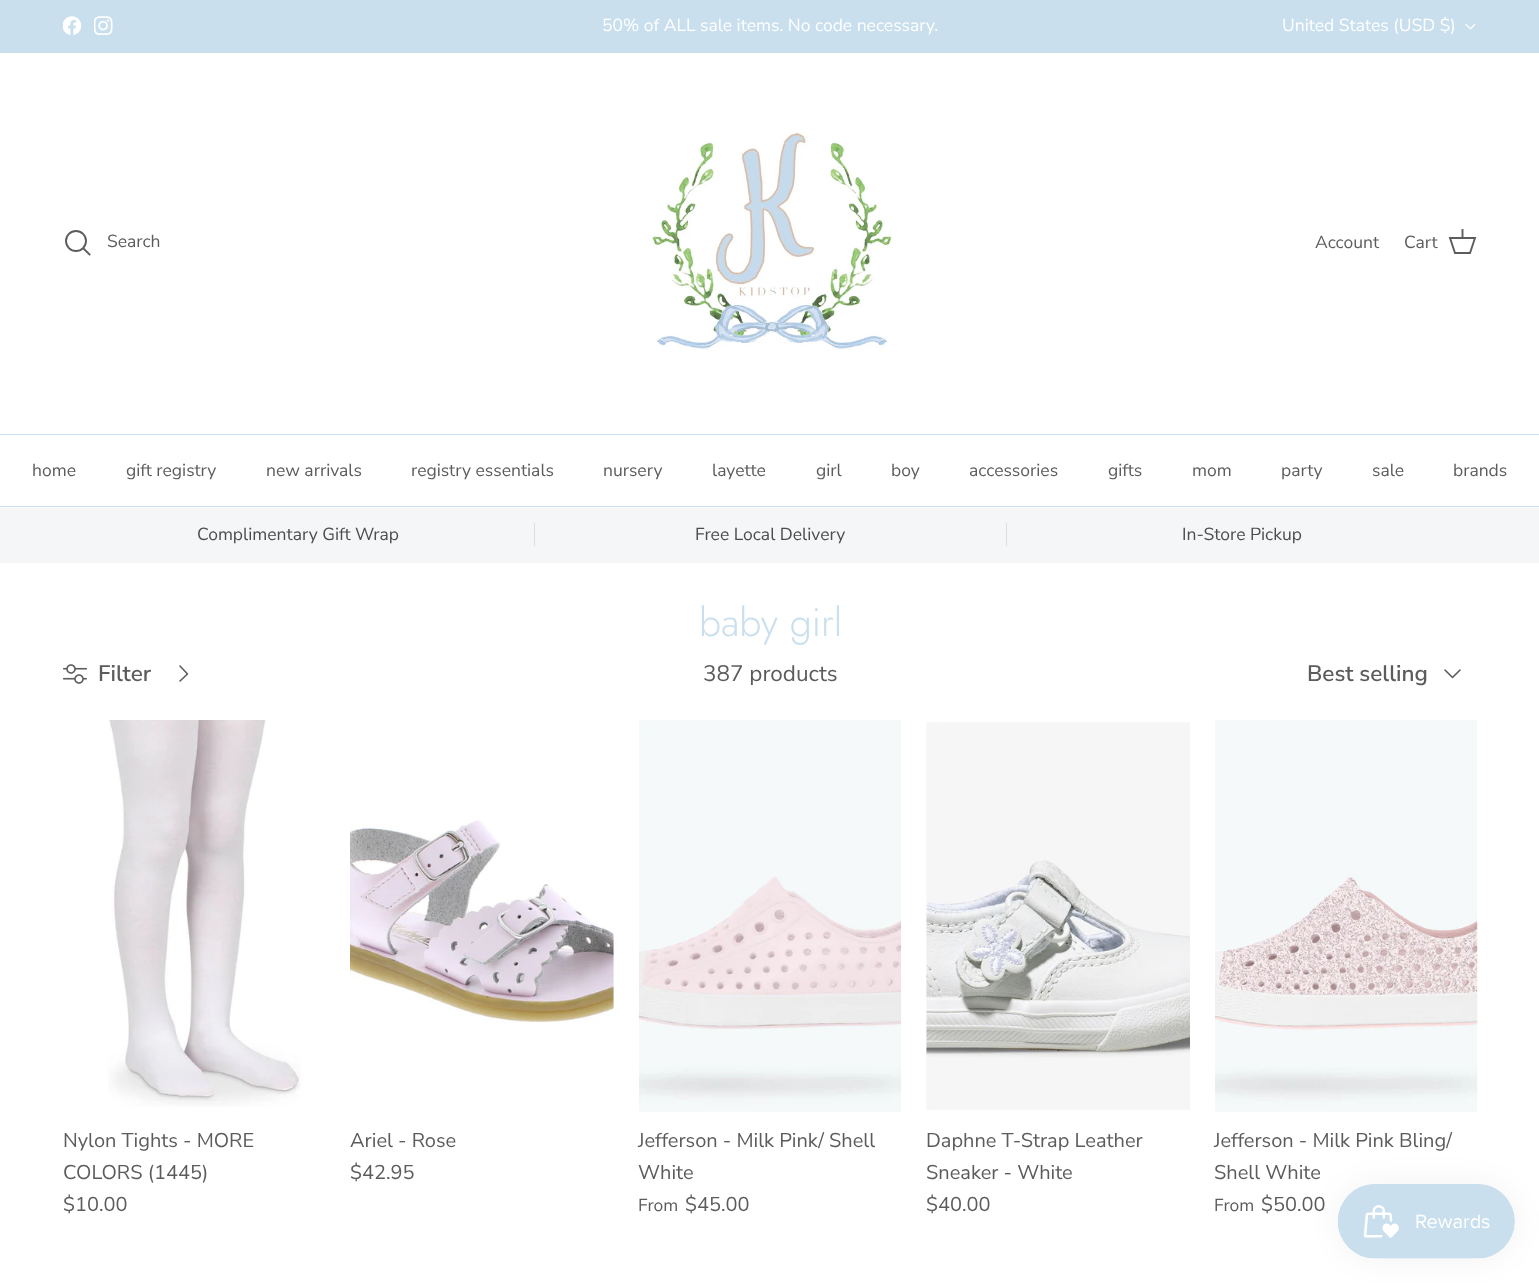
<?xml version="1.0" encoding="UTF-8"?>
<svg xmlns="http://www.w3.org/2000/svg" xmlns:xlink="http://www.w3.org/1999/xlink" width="1539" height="1283">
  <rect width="100%" height="100%" fill="#ffffff" />
  <rect width="1539" height="53" fill="#c9dfee" />
  <image x="63" y="16" width="18" height="19" xlink:href="image1.png" />
  <image x="94" y="16" width="19" height="19" xlink:href="image2.png" />
  <path d="M 1475 24 l -4.5 5 l -5 -5" fill="none" stroke="#ffffff" stroke-width="1.2" />
  <rect y="434" width="1539" height="1" fill="#c9dfee" />
  <circle cx="76" cy="241" r="10" fill="none" stroke="#5c5c5c" stroke-width="1.9" />
  <path d="M 83.5 248.5 l 6 6" fill="none" stroke="#5c5c5c" stroke-width="1.9" stroke-linecap="square" />
  <image x="651" y="132" width="241" height="218" xlink:href="image3.png" />
  <path d="M 1450 238 h 25 l -5 15 h -15 z" fill="none" stroke="#5c5c5c" stroke-width="1.9" />
  <path d="M 1462.5 237.5 v -7.5" fill="none" stroke="#5c5c5c" stroke-width="1.9" stroke-linecap="square" />
  <rect y="506" width="1539" height="1" fill="#c9dfee" />
  <rect y="508" width="1539" height="55" fill="#f4f6f8" />
  <rect x="534" y="523" width="1" height="23" fill="#dbddde" />
  <rect x="1006" y="523" width="1" height="23" fill="#dbddde" />
  <image x="63" y="664" width="24" height="20" xlink:href="image4.png" />
  <path d="M 180 681 l 7.5 -7 l -7.5 -8" fill="none" stroke="#5c5c5c" stroke-width="1.6" stroke-linecap="round" stroke-linejoin="round" />
  <path d="M 1445 670 l 7.5 7.5 l 7.5 -7.5" fill="none" stroke="#5c5c5c" stroke-width="1.6" stroke-linecap="round" stroke-linejoin="round" />
  <image x="108" y="720" width="193" height="387" xlink:href="image5.png" />
  <image x="350" y="820" width="264" height="203" xlink:href="image6.png" />
  <image x="638" y="720" width="264" height="392" xlink:href="image7.png" />
  <image x="926" y="722" width="264" height="388" xlink:href="image8.png" />
  <image x="1215" y="720" width="263" height="392" xlink:href="image9.png" />
  <rect x="1338" y="1184" width="177" height="75" rx="37.5" fill="#000000" fill-opacity="0.05" filter="blur(15.5px)" />
  <image x="1338" y="1184" width="177" height="75" xlink:href="image10.png" />
  <text x="602" y="31" style="font-family: Nunito Sans; font-size: 17.5px; fill: #ffffff">50% of ALL sale items. No code necessary.</text>
  <text x="1282" y="31" style="font-family: Nunito Sans; font-size: 17.5px; fill: #ffffff">United States (USD $)</text>
  <text x="107" y="247" style="font-family: Nunito Sans; font-size: 17.5px; fill: #5c5c5c">Search</text>
  <text x="1315" y="248" style="font-family: Nunito Sans; font-size: 17.5px; fill: #5c5c5c">Account</text>
  <text x="1404" y="248" style="font-family: Nunito Sans; font-size: 17.5px; fill: #5c5c5c">Cart</text>
  <text x="32" y="476" style="font-family: Nunito Sans; font-size: 17.5px; fill: #5c5c5c">home</text>
  <text x="126" y="476" style="font-family: Nunito Sans; font-size: 17.5px; fill: #5c5c5c">gift registry</text>
  <text x="266" y="476" style="font-family: Nunito Sans; font-size: 17.5px; fill: #5c5c5c">new arrivals</text>
  <text x="411" y="476" style="font-family: Nunito Sans; font-size: 17.5px; fill: #5c5c5c">registry essentials</text>
  <text x="603" y="476" style="font-family: Nunito Sans; font-size: 17.5px; fill: #5c5c5c">nursery</text>
  <text x="712" y="476" style="font-family: Nunito Sans; font-size: 17.5px; fill: #5c5c5c">layette</text>
  <text x="816" y="476" style="font-family: Nunito Sans; font-size: 17.5px; fill: #5c5c5c">girl</text>
  <text x="891" y="476" style="font-family: Nunito Sans; font-size: 17.5px; fill: #5c5c5c">boy</text>
  <text x="969" y="476" style="font-family: Nunito Sans; font-size: 17.5px; fill: #5c5c5c">accessories</text>
  <text x="1108" y="476" style="font-family: Nunito Sans; font-size: 17.5px; fill: #5c5c5c">gifts</text>
  <text x="1192" y="476" style="font-family: Nunito Sans; font-size: 17.5px; fill: #5c5c5c">mom</text>
  <text x="1281" y="476" style="font-family: Nunito Sans; font-size: 17.5px; fill: #5c5c5c">party</text>
  <text x="1372" y="476" style="font-family: Nunito Sans; font-size: 17.5px; fill: #5c5c5c">sale</text>
  <text x="1453" y="476" style="font-family: Nunito Sans; font-size: 17.5px; fill: #5c5c5c">brands</text>
  <text x="197" y="540" style="font-family: Nunito Sans; font-size: 17.5px; fill: #4c4c4b">Complimentary Gift Wrap</text>
  <text x="695" y="540" style="font-family: Nunito Sans; font-size: 17.5px; fill: #4c4c4b">Free Local Delivery</text>
  <text x="1182" y="540" style="font-family: Nunito Sans; font-size: 17.5px; fill: #4c4c4b">In-Store Pickup</text>
  <text x="699" y="636" style="font-family: Jost; font-size: 39.5px; font-weight: 300; fill: #c9dfee">baby girl</text>
  <text x="98" y="681" style="font-family: Nunito Sans; font-size: 22.5px; font-weight: 600; fill: #5c5c5c">Filter</text>
  <text x="703" y="681" style="font-family: Nunito Sans; font-size: 22.5px; fill: #5c5c5c">387 products</text>
  <text x="1307" y="681" style="font-family: Nunito Sans; font-size: 22.5px; font-weight: 600; fill: #5c5c5c">Best selling</text>
  <text x="63" y="1147" style="font-family: Nunito Sans; font-size: 20px; fill: #5c5c5c">Nylon Tights - MORE</text>
  <text x="63" y="1179" style="font-family: Nunito Sans; font-size: 20px; fill: #5c5c5c">COLORS (1445)</text>
  <text x="63" y="1211" style="font-family: Nunito Sans; font-size: 20px; fill: #5c5c5c">$10.00</text>
  <text x="350" y="1147" style="font-family: Nunito Sans; font-size: 20px; fill: #5c5c5c">Ariel - Rose</text>
  <text x="350" y="1179" style="font-family: Nunito Sans; font-size: 20px; fill: #5c5c5c">$42.95</text>
  <text x="638" y="1147" style="font-family: Nunito Sans; font-size: 20px; fill: #5c5c5c">Jefferson - Milk Pink/ Shell</text>
  <text x="638" y="1179" style="font-family: Nunito Sans; font-size: 20px; fill: #5c5c5c">White</text>
  <text x="638" y="1211" style="font-family: Nunito Sans; font-size: 17.5px; fill: #5c5c5c">From</text>
  <text x="685" y="1211" style="font-family: Nunito Sans; font-size: 20px; fill: #5c5c5c">$45.00</text>
  <text x="926" y="1147" style="font-family: Nunito Sans; font-size: 20px; fill: #5c5c5c">Daphne T-Strap Leather</text>
  <text x="926" y="1179" style="font-family: Nunito Sans; font-size: 20px; fill: #5c5c5c">Sneaker - White</text>
  <text x="926" y="1211" style="font-family: Nunito Sans; font-size: 20px; fill: #5c5c5c">$40.00</text>
  <text x="1214" y="1147" style="font-family: Nunito Sans; font-size: 20px; fill: #5c5c5c">Jefferson - Milk Pink Bling/</text>
  <text x="1214" y="1179" style="font-family: Nunito Sans; font-size: 20px; fill: #5c5c5c">Shell White</text>
  <text x="1214" y="1211" style="font-family: Nunito Sans; font-size: 17.5px; fill: #5c5c5c">From</text>
  <text x="1261" y="1211" style="font-family: Nunito Sans; font-size: 20px; fill: #5c5c5c">$50.00</text>
</svg>
